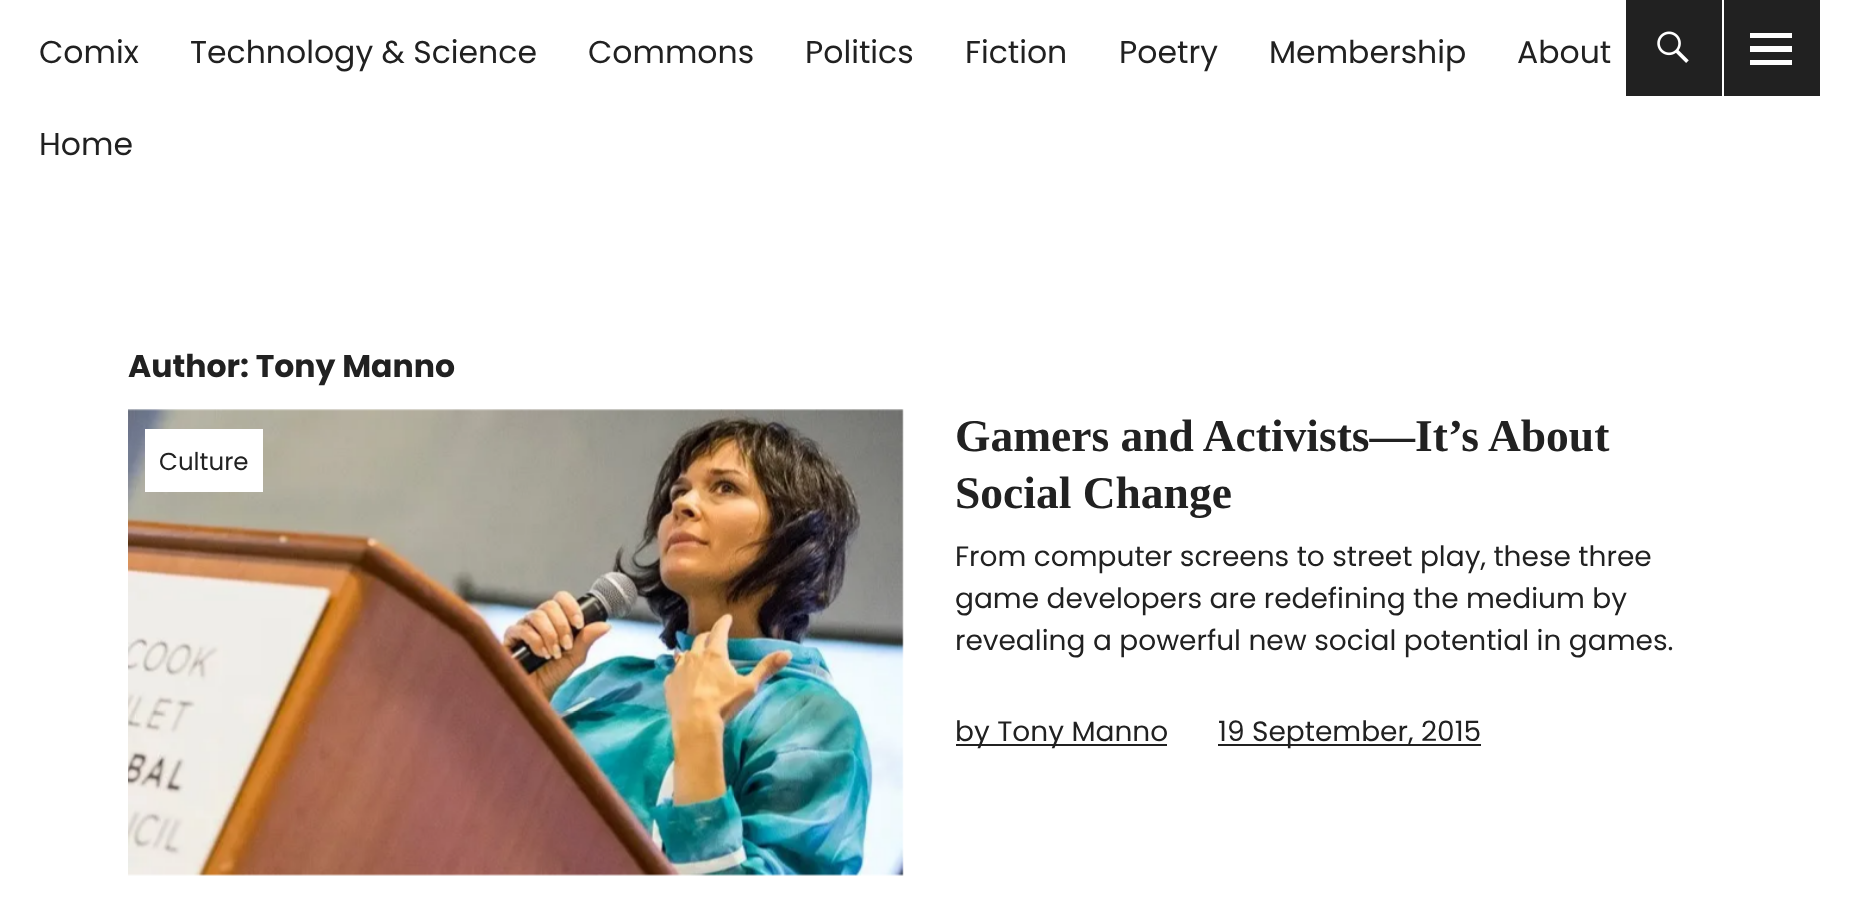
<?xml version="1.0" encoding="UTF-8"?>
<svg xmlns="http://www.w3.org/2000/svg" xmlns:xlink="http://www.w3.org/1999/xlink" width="1857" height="902">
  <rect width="100%" height="100%" fill="#ffffff" />
  <rect x="1626" width="96" height="96" fill="#000000" fill-opacity="0.87" />
  <image x="1657" y="31" width="32" height="32" xlink:href="image1.png" />
  <rect x="1724" width="96" height="96" fill="#212121" />
  <path d="M 1750 65 v -5 h 42 v 5 z m 0 -32 h 42 v 5 h -42 z m 0 19 v -6 h 42 v 6 z" fill="#ffffff" />
  <image x="128" y="409" width="776" height="467" xlink:href="image2.png" />
  <rect x="145" y="429" width="118" height="63" fill="#ffffff" />
  <rect x="956" y="744" width="211" height="2" fill="#212121" />
  <rect x="1218" y="744" width="263" height="2" fill="#212121" />
  <text x="39" y="63" style="font-family: Poppins; font-size: 31.5px; fill: #212121">Comix</text>
  <text x="190" y="63" style="font-family: Poppins; font-size: 31.5px; fill: #212121">Technology &amp; Science</text>
  <text x="588" y="63" style="font-family: Poppins; font-size: 31.5px; fill: #212121">Commons</text>
  <text x="805" y="63" style="font-family: Poppins; font-size: 31.5px; fill: #212121">Politics</text>
  <text x="965" y="63" style="font-family: Poppins; font-size: 31.5px; fill: #212121">Fiction</text>
  <text x="1119" y="63" style="font-family: Poppins; font-size: 31.5px; fill: #212121">Poetry</text>
  <text x="1269" y="63" style="font-family: Poppins; font-size: 31.5px; fill: #212121">Membership</text>
  <text x="1517" y="63" style="font-family: Poppins; font-size: 31.5px; fill: #212121">About</text>
  <text x="39" y="155" style="font-family: Poppins; font-size: 31.5px; fill: #212121">Home</text>
  <text x="128" y="377" style="font-family: Poppins; font-size: 31.5px; font-weight: bold; fill: #212121">Author: Tony Manno</text>
  <text x="159" y="470" style="font-family: Poppins; font-size: 24.5px; fill: #212121">Culture</text>
  <text x="955" y="451" style="font-family: Liberation Serif; font-size: 45.5px; font-weight: bold; fill: #212121">Gamers and Activists—It’s About</text>
  <text x="955" y="508" style="font-family: Liberation Serif; font-size: 45.5px; font-weight: bold; fill: #212121">Social Change</text>
  <text x="955" y="566" style="font-family: Poppins; font-size: 28px; fill: #212121">From computer screens to street play, these three</text>
  <text x="955" y="608" style="font-family: Poppins; font-size: 28px; fill: #212121">game developers are redefining the medium by</text>
  <text x="955" y="650" style="font-family: Poppins; font-size: 28px; fill: #212121">revealing a powerful new social potential in games.</text>
  <text x="955" y="741" style="font-family: Poppins; font-size: 28px; fill: #212121">by Tony Manno</text>
  <text x="1218" y="741" style="font-family: Poppins; font-size: 28px; fill: #212121">19 September, 2015</text>
</svg>
